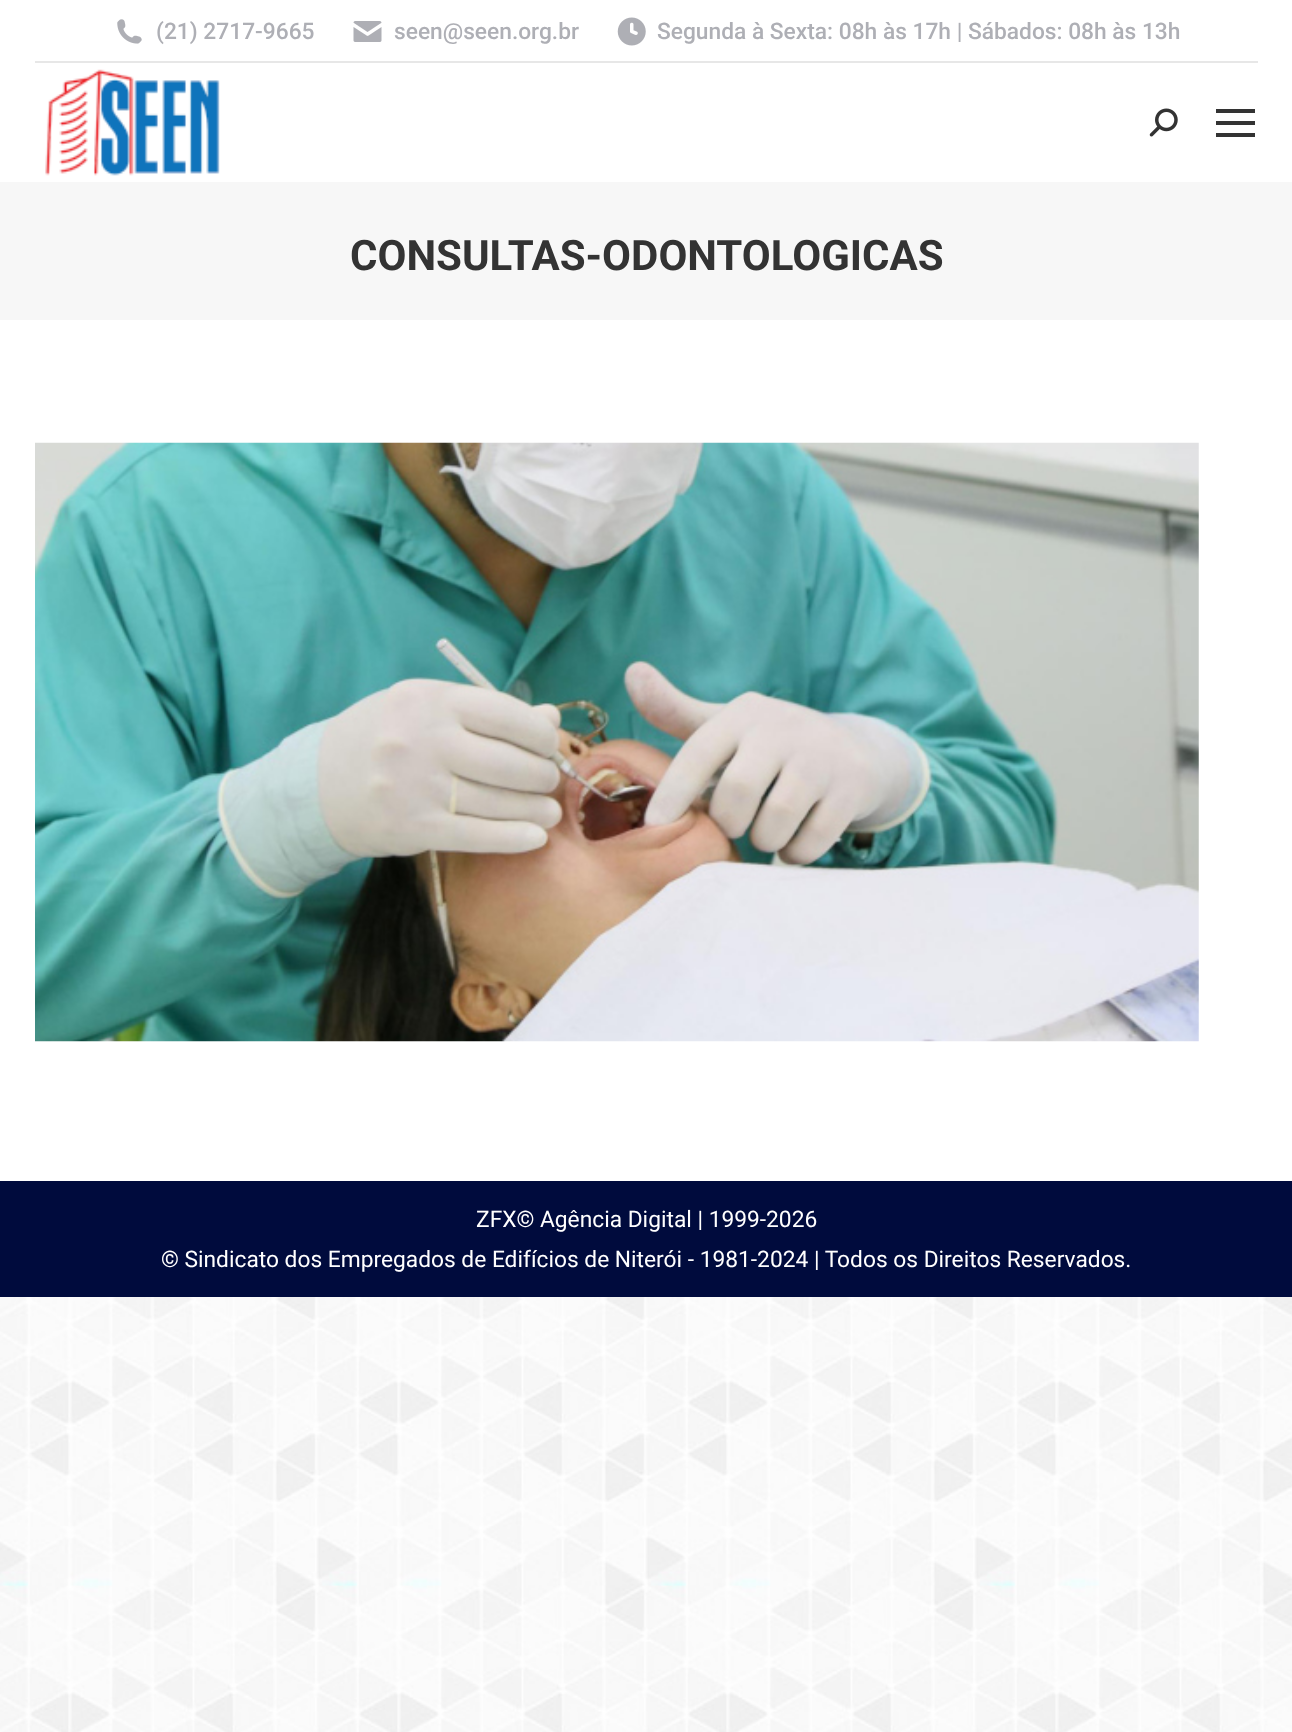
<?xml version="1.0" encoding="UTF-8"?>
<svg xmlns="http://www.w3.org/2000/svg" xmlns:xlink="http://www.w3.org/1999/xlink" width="1292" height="1732">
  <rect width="100%" height="100%" fill="#ffffff" />
  <image x="0" y="1297" width="1292" height="435" xlink:href="image1.png" />
  <image x="117" y="19" width="25" height="25" xlink:href="image2.png" />
  <image x="353" y="21" width="29" height="21" xlink:href="image3.png" />
  <image x="617" y="17" width="29" height="29" xlink:href="image4.png" />
  <rect x="35" y="61" width="1223" height="2" fill="#e7e7e7" />
  <image x="45" y="69" width="175" height="107" xlink:href="image5.png" />
  <image x="1149" y="108" width="29" height="29" xlink:href="image6.png" />
  <rect x="1216" y="109" width="39" height="4" fill="#333333" />
  <rect x="1216" y="121" width="39" height="4" fill="#333333" />
  <rect x="1216" y="133" width="39" height="4" fill="#333333" />
  <rect y="182" width="1292" height="138" fill="#f7f7f7" />
  <image x="35" y="442" width="1164" height="600" xlink:href="image7.png" />
  <rect y="1181" width="1292" height="116" fill="#000b3d" />
  <text x="156" y="39" style="font-family: Roboto; font-size: 22.75px; font-weight: 500; fill: #aeafb5">(21) 2717-9665</text>
  <text x="394" y="39" style="font-family: Roboto; font-size: 22.75px; font-weight: 500; fill: #aeafb5">seen@seen.org.br</text>
  <text x="657" y="39" style="font-family: Roboto; font-size: 22.75px; font-weight: 500; fill: #aeafb5">Segunda à Sexta: 08h às 17h | Sábados: 08h às 13h</text>
  <text x="350" y="270" style="font-family: Roboto; font-size: 42px; font-weight: bold; fill: #333333">CONSULTAS-ODONTOLOGICAS</text>
  <text x="476" y="1227" style="font-family: Roboto; font-size: 22.75px; fill: #ffffff">ZFX© Agência Digital | 1999-2026</text>
  <text x="161" y="1267" style="font-family: Roboto; font-size: 22.75px; fill: #ffffff">© Sindicato dos Empregados de Edifícios de Niterói - 1981-2024 | Todos os Direitos Reservados.</text>
</svg>
